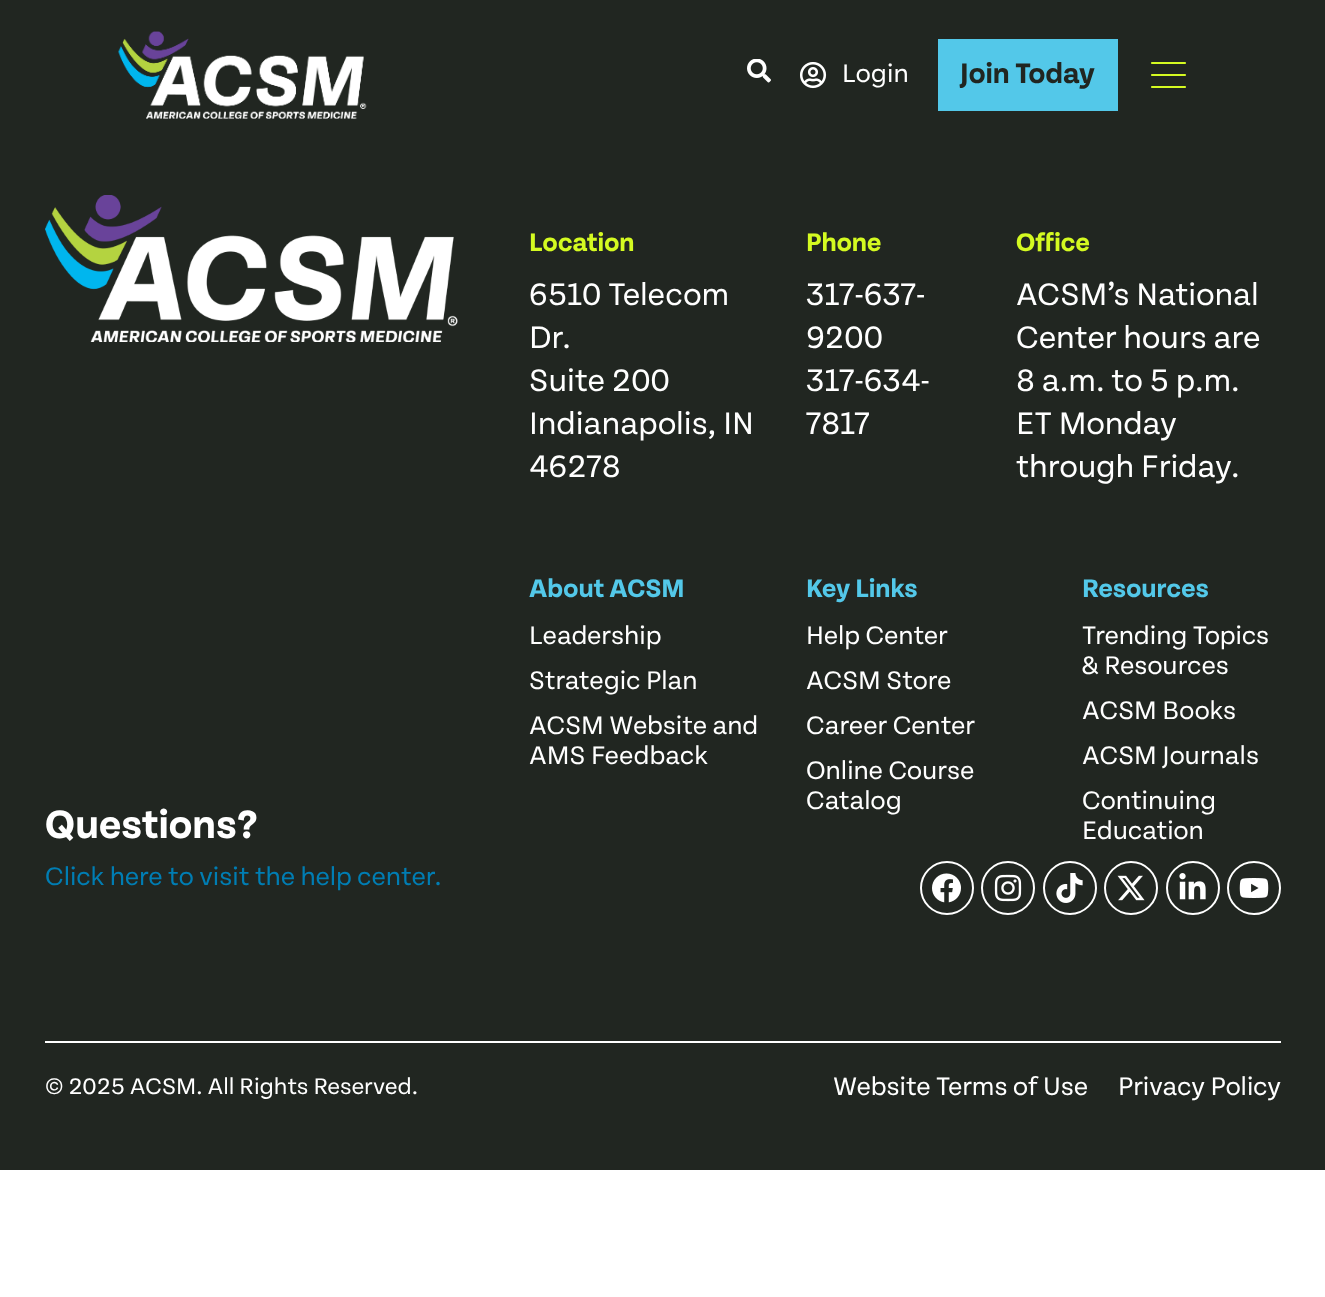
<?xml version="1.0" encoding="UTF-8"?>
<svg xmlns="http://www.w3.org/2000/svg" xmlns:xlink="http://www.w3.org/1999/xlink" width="1325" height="1297">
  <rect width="100%" height="100%" fill="#ffffff" />
  <rect width="1325" height="1170" fill="#212621" />
  <image x="118" y="31" width="249" height="88" xlink:href="image1.png" />
  <image x="747" y="59" width="24" height="24" xlink:href="image2.png" />
  <image x="800" y="62" width="27" height="27" xlink:href="image3.png" />
  <rect x="938" y="39" width="180" height="72" fill="#53c8e9" />
  <path d="M 1152 75 h 33 m -33 -12 h 33 m -33 24 h 33" fill="none" stroke="#d4fa21" stroke-width="2.2" stroke-linecap="round" stroke-linejoin="round" />
  <circle cx="947" cy="888" r="26" fill="none" stroke="#ffffff" stroke-width="2" />
  <image x="932" y="873" width="29" height="30" xlink:href="image4.png" />
  <circle cx="1008" cy="888" r="26" fill="none" stroke="#ffffff" stroke-width="2" />
  <image x="994" y="874" width="28" height="28" xlink:href="image5.png" />
  <circle cx="1070" cy="888" r="26" fill="none" stroke="#ffffff" stroke-width="2" />
  <image x="1056" y="873" width="27" height="30" xlink:href="image6.png" />
  <circle cx="1131" cy="888" r="26" fill="none" stroke="#ffffff" stroke-width="2" />
  <image x="1117" y="875" width="28" height="26" xlink:href="image7.png" />
  <circle cx="1193" cy="888" r="26" fill="none" stroke="#ffffff" stroke-width="2" />
  <image x="1179" y="873" width="27" height="27" xlink:href="image8.png" />
  <circle cx="1254" cy="888" r="26" fill="none" stroke="#ffffff" stroke-width="2" />
  <image x="1239" y="878" width="30" height="20" xlink:href="image9.png" />
  <image x="45" y="195" width="413" height="147" xlink:href="image10.png" />
  <rect x="45" y="1041" width="1236" height="2" fill="#ffffff" />
  <text x="842" y="82" style="font-family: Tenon; font-size: 27px; fill: #ffffff">Login</text>
  <text x="960" y="83" style="font-family: Tenon; font-size: 30px; font-weight: bold; fill: #212621">Join Today</text>
  <text x="529" y="251" style="font-family: Tenon; font-size: 27px; font-weight: bold; fill: #d4fa21">Location</text>
  <text x="529" y="305" style="font-family: Tenon; font-size: 33px; fill: #ffffff">6510 Telecom</text>
  <text x="529" y="348" style="font-family: Tenon; font-size: 33px; fill: #ffffff">Dr.</text>
  <text x="529" y="391" style="font-family: Tenon; font-size: 33px; fill: #ffffff">Suite 200</text>
  <text x="529" y="434" style="font-family: Tenon; font-size: 33px; fill: #ffffff">Indianapolis, IN</text>
  <text x="529" y="477" style="font-family: Tenon; font-size: 33px; fill: #ffffff">46278</text>
  <text x="806" y="251" style="font-family: Tenon; font-size: 27px; font-weight: bold; fill: #d4fa21">Phone</text>
  <text x="806" y="305" style="font-family: Tenon; font-size: 33px; fill: #ffffff">317-637-</text>
  <text x="806" y="348" style="font-family: Tenon; font-size: 33px; fill: #ffffff">9200</text>
  <text x="806" y="391" style="font-family: Tenon; font-size: 33px; fill: #ffffff">317-634-</text>
  <text x="806" y="434" style="font-family: Tenon; font-size: 33px; fill: #ffffff">7817</text>
  <text x="1016" y="251" style="font-family: Tenon; font-size: 27px; font-weight: bold; fill: #d4fa21">Office</text>
  <text x="1016" y="305" style="font-family: Tenon; font-size: 33px; fill: #ffffff">ACSM’s National</text>
  <text x="1016" y="348" style="font-family: Tenon; font-size: 33px; fill: #ffffff">Center hours are</text>
  <text x="1016" y="391" style="font-family: Tenon; font-size: 33px; fill: #ffffff">8 a.m. to 5 p.m.</text>
  <text x="1016" y="434" style="font-family: Tenon; font-size: 33px; fill: #ffffff">ET Monday</text>
  <text x="1016" y="477" style="font-family: Tenon; font-size: 33px; fill: #ffffff">through Friday.</text>
  <text x="529" y="597" style="font-family: Tenon; font-size: 27px; font-weight: bold; fill: #53c8e9">About ACSM</text>
  <text x="529" y="644" style="font-family: Tenon; font-size: 27px; fill: #ffffff">Leadership</text>
  <text x="529" y="689" style="font-family: Tenon; font-size: 27px; fill: #ffffff">Strategic Plan</text>
  <text x="529" y="734" style="font-family: Tenon; font-size: 27px; fill: #ffffff">ACSM Website and</text>
  <text x="529" y="764" style="font-family: Tenon; font-size: 27px; fill: #ffffff">AMS Feedback</text>
  <text x="806" y="597" style="font-family: Tenon; font-size: 27px; font-weight: bold; fill: #53c8e9">Key Links</text>
  <text x="806" y="644" style="font-family: Tenon; font-size: 27px; fill: #ffffff">Help Center</text>
  <text x="806" y="689" style="font-family: Tenon; font-size: 27px; fill: #ffffff">ACSM Store</text>
  <text x="806" y="734" style="font-family: Tenon; font-size: 27px; fill: #ffffff">Career Center</text>
  <text x="806" y="779" style="font-family: Tenon; font-size: 27px; fill: #ffffff">Online Course</text>
  <text x="806" y="809" style="font-family: Tenon; font-size: 27px; fill: #ffffff">Catalog</text>
  <text x="1082" y="597" style="font-family: Tenon; font-size: 27px; font-weight: bold; fill: #53c8e9">Resources</text>
  <text x="1082" y="644" style="font-family: Tenon; font-size: 27px; fill: #ffffff">Trending Topics</text>
  <text x="1082" y="674" style="font-family: Tenon; font-size: 27px; fill: #ffffff">&amp; Resources</text>
  <text x="1082" y="719" style="font-family: Tenon; font-size: 27px; fill: #ffffff">ACSM Books</text>
  <text x="1082" y="764" style="font-family: Tenon; font-size: 27px; fill: #ffffff">ACSM Journals</text>
  <text x="1082" y="809" style="font-family: Tenon; font-size: 27px; fill: #ffffff">Continuing</text>
  <text x="1082" y="839" style="font-family: Tenon; font-size: 27px; fill: #ffffff">Education</text>
  <text x="45" y="838" style="font-family: Tenon; font-size: 42px; font-weight: bold; fill: #ffffff">Questions?</text>
  <text x="45" y="885" style="font-family: Tenon; font-size: 27px; fill: #007db3">Click here to visit the help center.</text>
  <text x="45" y="1094" style="font-family: Tenon; font-size: 24px; fill: #ffffff">© 2025 ACSM. All Rights Reserved.</text>
  <text x="833" y="1095" style="font-family: Tenon; font-size: 27px; fill: #ffffff">Website Terms of Use</text>
  <text x="1118" y="1095" style="font-family: Tenon; font-size: 27px; fill: #ffffff">Privacy Policy</text>
</svg>
